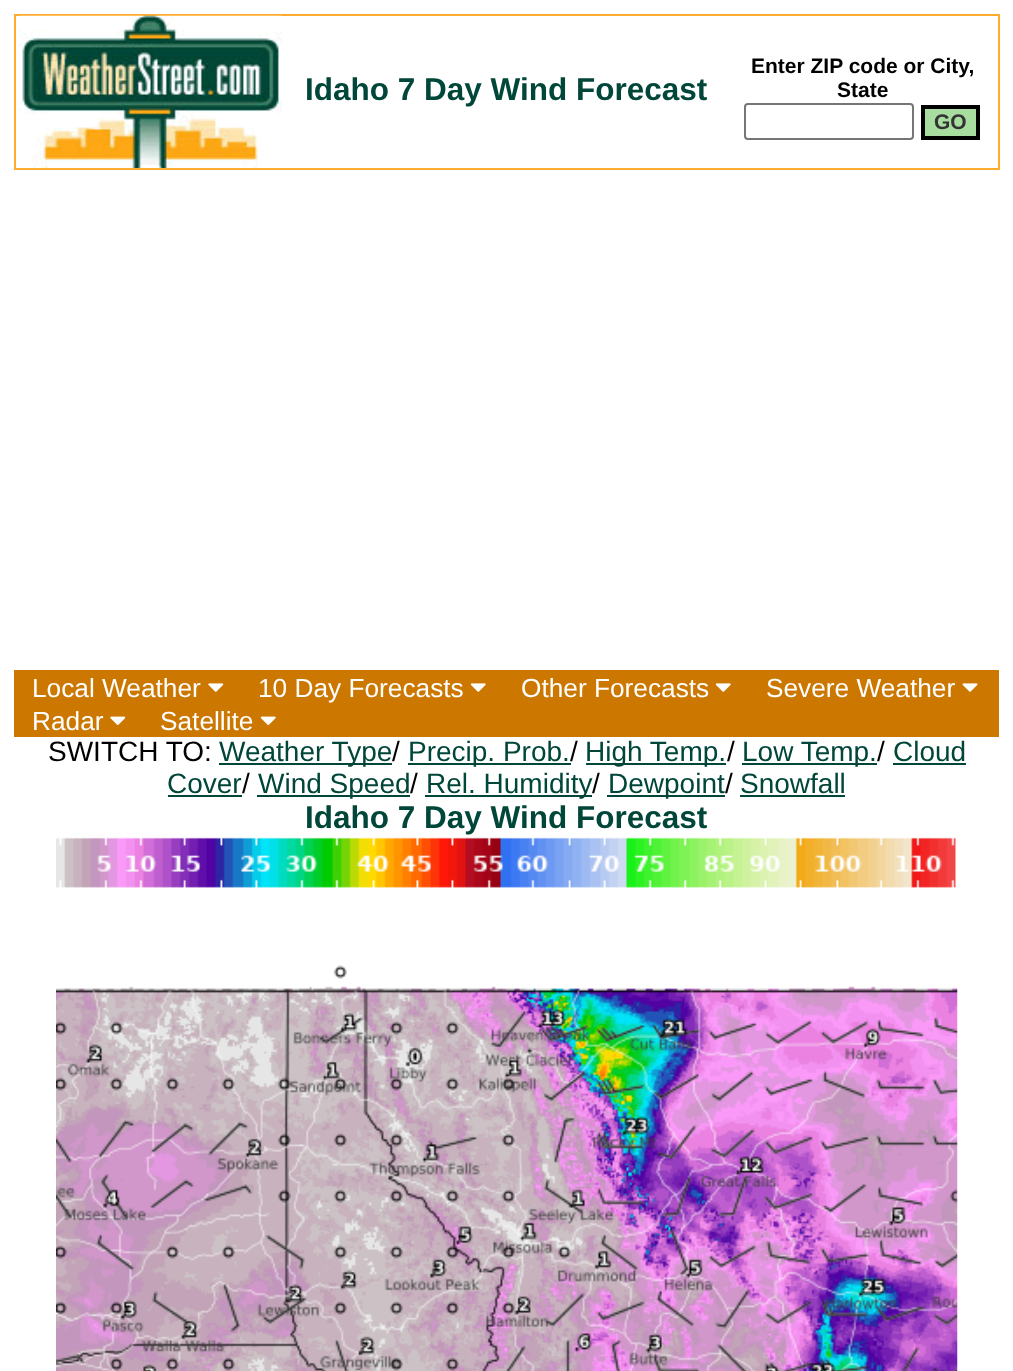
<?xml version="1.0" encoding="UTF-8"?>
<svg xmlns="http://www.w3.org/2000/svg" xmlns:xlink="http://www.w3.org/1999/xlink" width="1013" height="1371">
  <rect width="100%" height="100%" fill="#ffffff" />
  <rect x="14" y="14" width="985" height="2" fill="#ffac2e" />
  <rect x="998" y="14" width="2" height="156" fill="#ffac2e" />
  <rect x="14" y="168" width="985" height="2" fill="#ffac2e" />
  <rect x="14" y="14" width="2" height="156" fill="#ffac2e" />
  <image x="19" y="15" width="263" height="153" xlink:href="image1.png" />
  <rect x="745" y="104" width="168" height="35" rx="3" fill="none" stroke="#767676" stroke-width="2" />
  <rect x="923" y="107" width="55" height="31" fill="#a8dda0" stroke="#000000" stroke-width="4" />
  <rect x="14" y="670" width="985" height="67" fill="#cc7700" />
  <image x="208" y="683" width="16" height="9" xlink:href="image2.png" />
  <image x="470" y="683" width="16" height="9" xlink:href="image3.png" />
  <image x="715" y="683" width="16" height="9" xlink:href="image3.png" />
  <image x="962" y="683" width="16" height="9" xlink:href="image4.png" />
  <image x="110" y="716" width="16" height="9" xlink:href="image5.png" />
  <image x="260" y="716" width="16" height="9" xlink:href="image6.png" />
  <rect x="219" y="763" width="173" height="2" fill="#004639" />
  <rect x="408" y="763" width="163" height="2" fill="#004639" />
  <rect x="586" y="763" width="140" height="2" fill="#004639" />
  <rect x="742" y="763" width="135" height="2" fill="#004639" />
  <rect x="893" y="763" width="73" height="2" fill="#004639" />
  <rect x="168" y="795" width="74" height="2" fill="#004639" />
  <rect x="257" y="795" width="153" height="2" fill="#004639" />
  <rect x="425" y="795" width="167" height="2" fill="#004639" />
  <rect x="607" y="795" width="118" height="2" fill="#004639" />
  <rect x="740" y="795" width="105" height="2" fill="#004639" />
  <image x="56" y="837" width="902" height="534" xlink:href="image7.png" />
  <text x="305" y="100" style="font-family: Liberation Sans; font-size: 31.5px; font-weight: bold; fill: #004639">Idaho 7 Day Wind Forecast</text>
  <text x="751" y="73" style="font-family: Liberation Sans; font-size: 21px; font-weight: bold; fill: #000000">Enter ZIP code or City,</text>
  <text x="837" y="97" style="font-family: Liberation Sans; font-size: 21px; font-weight: bold; fill: #000000">State</text>
  <text x="934" y="129" style="font-family: Liberation Sans; font-size: 21px; font-weight: bold; fill: #333333">GO</text>
  <text x="32" y="697" style="font-family: Liberation Sans; font-size: 26.25px; fill: #ffffff">Local Weather</text>
  <text x="258" y="697" style="font-family: Liberation Sans; font-size: 26.25px; fill: #ffffff">10 Day Forecasts</text>
  <text x="521" y="697" style="font-family: Liberation Sans; font-size: 26.25px; fill: #ffffff">Other Forecasts</text>
  <text x="766" y="697" style="font-family: Liberation Sans; font-size: 26.25px; fill: #ffffff">Severe Weather</text>
  <text x="32" y="730" style="font-family: Liberation Sans; font-size: 26.25px; fill: #ffffff">Radar</text>
  <text x="160" y="730" style="font-family: Liberation Sans; font-size: 26.25px; fill: #ffffff">Satellite</text>
  <text x="48" y="761" style="font-family: Liberation Sans; font-size: 28px; fill: #000000">SWITCH TO:</text>
  <text x="219" y="761" style="font-family: Liberation Sans; font-size: 28px; fill: #004639">Weather Type</text>
  <text x="392" y="761" style="font-family: Liberation Sans; font-size: 28px; fill: #000000">/</text>
  <text x="408" y="761" style="font-family: Liberation Sans; font-size: 28px; fill: #004639">Precip. Prob.</text>
  <text x="570" y="761" style="font-family: Liberation Sans; font-size: 28px; fill: #000000">/</text>
  <text x="585" y="761" style="font-family: Liberation Sans; font-size: 28px; fill: #004639">High Temp.</text>
  <text x="727" y="761" style="font-family: Liberation Sans; font-size: 28px; fill: #000000">/</text>
  <text x="742" y="761" style="font-family: Liberation Sans; font-size: 28px; fill: #004639">Low Temp.</text>
  <text x="877" y="761" style="font-family: Liberation Sans; font-size: 28px; fill: #000000">/</text>
  <text x="893" y="761" style="font-family: Liberation Sans; font-size: 28px; fill: #004639">Cloud</text>
  <text x="167" y="793" style="font-family: Liberation Sans; font-size: 28px; fill: #004639">Cover</text>
  <text x="242" y="793" style="font-family: Liberation Sans; font-size: 28px; fill: #000000">/</text>
  <text x="258" y="793" style="font-family: Liberation Sans; font-size: 28px; fill: #004639">Wind Speed</text>
  <text x="410" y="793" style="font-family: Liberation Sans; font-size: 28px; fill: #000000">/</text>
  <text x="426" y="793" style="font-family: Liberation Sans; font-size: 28px; fill: #004639">Rel. Humidity</text>
  <text x="592" y="793" style="font-family: Liberation Sans; font-size: 28px; fill: #000000">/</text>
  <text x="608" y="793" style="font-family: Liberation Sans; font-size: 28px; fill: #004639">Dewpoint</text>
  <text x="725" y="793" style="font-family: Liberation Sans; font-size: 28px; fill: #000000">/</text>
  <text x="740" y="793" style="font-family: Liberation Sans; font-size: 28px; fill: #004639">Snowfall</text>
  <text x="305" y="828" style="font-family: Liberation Sans; font-size: 31.5px; font-weight: bold; fill: #004639">Idaho 7 Day Wind Forecast</text>
</svg>
